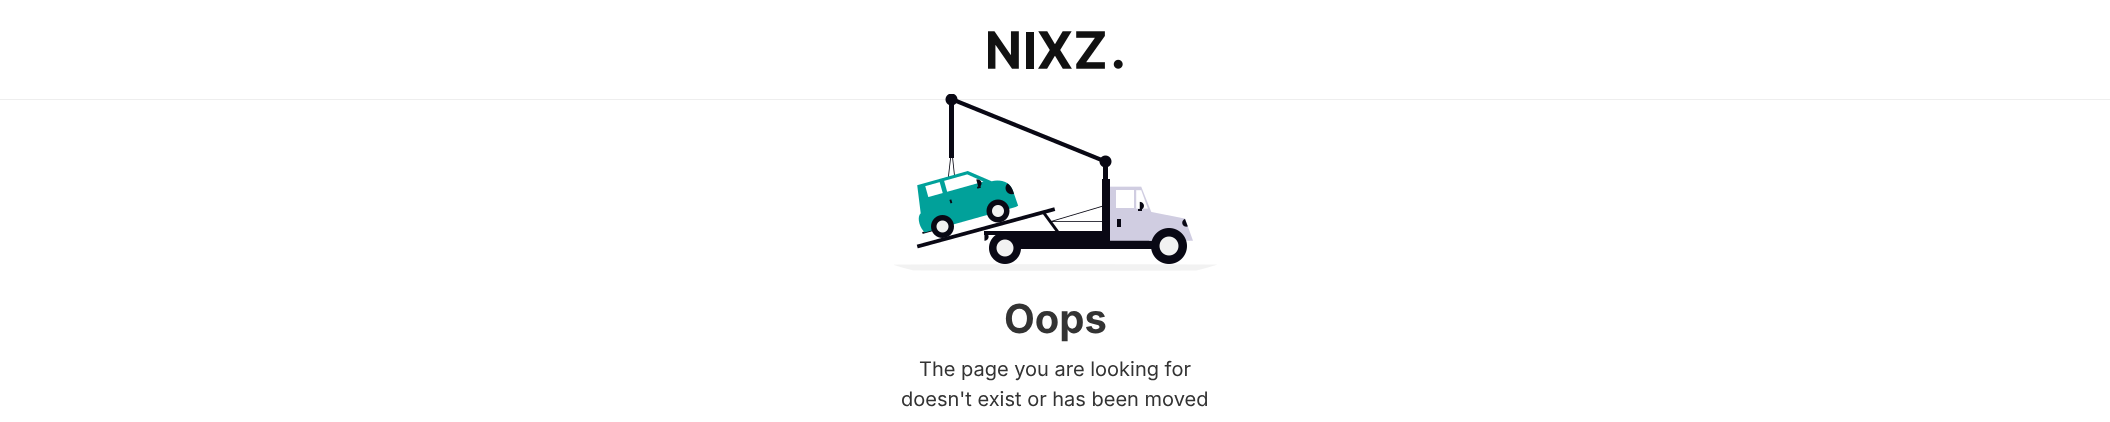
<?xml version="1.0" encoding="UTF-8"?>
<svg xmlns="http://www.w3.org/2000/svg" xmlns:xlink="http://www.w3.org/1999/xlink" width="2110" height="422">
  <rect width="100%" height="100%" fill="#ffffff" />
  <rect y="99" width="2110" height="1" fill="#eeeeee" />
  <image x="988" y="31" width="135" height="38" xlink:href="image1.png" />
  <image x="894" y="94" width="323" height="177" xlink:href="image2.png" />
  <text x="1004" y="333" style="font-family: Inter; font-size: 40px; font-weight: bold; fill: #333333">Oops</text>
  <text x="919" y="376" style="font-family: Inter; font-size: 20px; fill: #333333">The page you are looking for</text>
  <text x="901" y="406" style="font-family: Inter; font-size: 20px; fill: #333333">doesn't exist or has been moved</text>
</svg>
